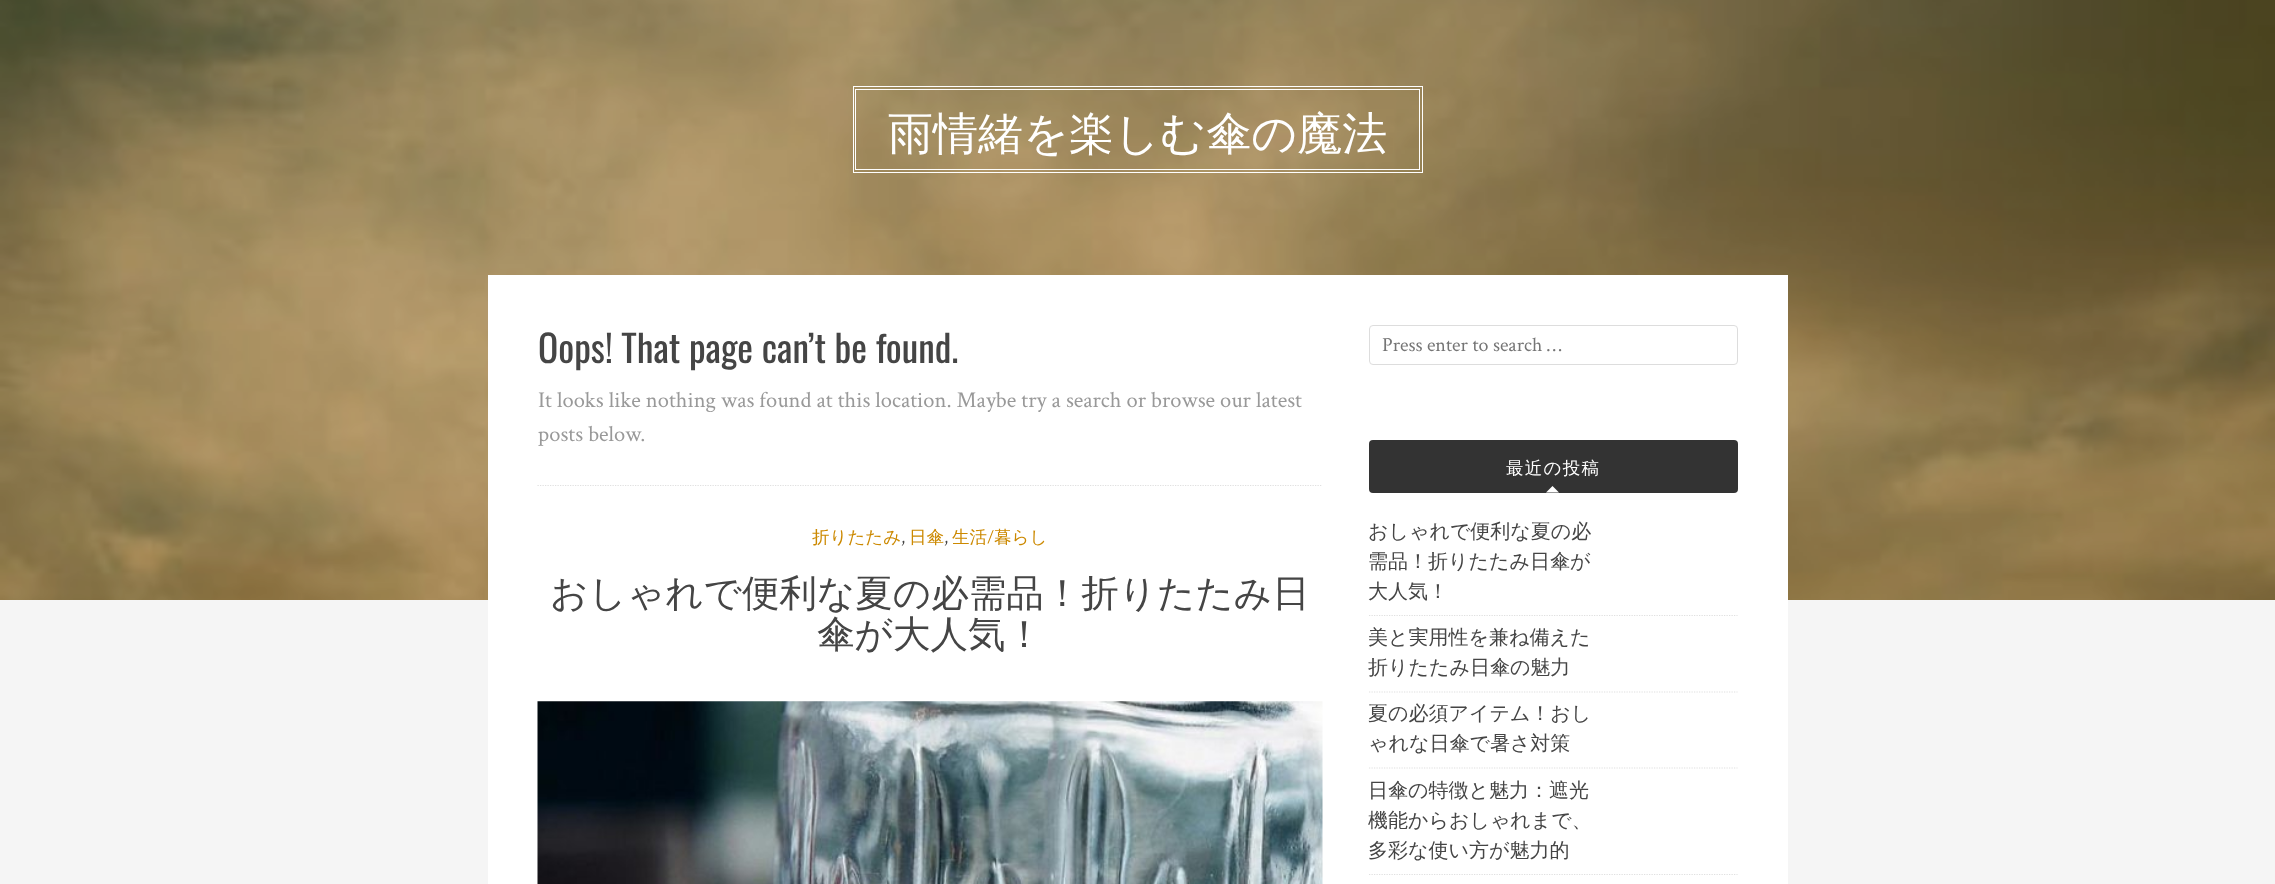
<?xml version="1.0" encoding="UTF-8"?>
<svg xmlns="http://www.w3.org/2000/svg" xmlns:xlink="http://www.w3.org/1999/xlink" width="2275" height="884">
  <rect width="100%" height="100%" fill="#f5f5f5" />
  <image x="0" y="0" width="2275" height="600" xlink:href="image1.png" />
  <rect x="853.5" y="86.5" width="569" height="86" fill="none" stroke="#ffffff" />
  <rect x="855.5" y="89.5" width="564" height="80" fill="none" stroke="#ffffff" />
  <rect x="488" y="275" width="1300" height="609" fill="#ffffff" />
  <path d="M 537.5 485.5 h 785" fill="none" stroke="#e0e0e0" stroke-width="1.2" stroke-dasharray="1.25 1.25" />
  <image x="537" y="701" width="786" height="183" xlink:href="image2.png" />
  <rect x="1369.5" y="325.5" width="368" height="39" rx="3.5" fill="none" stroke="#dddddd" />
  <rect x="1369" y="440" width="369" height="53" rx="4" fill="#333333" />
  <path d="M 1559 492.5 h -13 l 6.5 -6.5 z" fill="#ffffff" />
  <path d="M 1369 615.5 h 368.5" fill="none" stroke="#e0e0e0" stroke-width="1.2" stroke-dasharray="1.25 1.25" />
  <path d="M 1369 692 h 368.5" fill="none" stroke="#e0e0e0" stroke-width="1.2" stroke-dasharray="1.25 1.25" />
  <path d="M 1369 768 h 368.5" fill="none" stroke="#e0e0e0" stroke-width="1.2" stroke-dasharray="1.25 1.25" />
  <path d="M 1369 874.5 h 368.5" fill="none" stroke="#e0e0e0" stroke-width="1.2" stroke-dasharray="1.25 1.25" />
  <text x="888" y="149" style="font-family: WenQuanYi Zen Hei; font-size: 45px; font-weight: 500; fill: #ffffff">雨情緒を楽しむ傘の魔法</text>
  <text x="538" y="363" style="font-family: Oswald; font-size: 37.5px; fill: #454545">Oops! That page can’t be found.</text>
  <text x="538" y="407" style="font-family: Crimson Text; font-size: 22.5px; fill: #999999">It looks like nothing was found at this location. Maybe try a search or browse our latest</text>
  <text x="538" y="441" style="font-family: Crimson Text; font-size: 22.5px; fill: #999999">posts below.</text>
  <text x="812" y="543" style="font-family: WenQuanYi Zen Hei; font-size: 17.5px; font-weight: 500; fill: #cc8900">折りたたみ</text>
  <text x="901" y="543" style="font-family: Crimson Text; font-size: 17.5px; fill: #454545">,</text>
  <text x="909" y="543" style="font-family: WenQuanYi Zen Hei; font-size: 17.5px; font-weight: 500; fill: #cc8900">日傘</text>
  <text x="944" y="543" style="font-family: Crimson Text; font-size: 17.5px; fill: #454545">,</text>
  <text x="952" y="543" style="font-family: WenQuanYi Zen Hei; font-size: 17.5px; font-weight: 500; fill: #cc8900">生活</text>
  <text x="987" y="543" style="font-family: Crimson Text; font-size: 17.5px; fill: #cc8900">/</text>
  <text x="994" y="543" style="font-family: WenQuanYi Zen Hei; font-size: 17.5px; font-weight: 500; fill: #cc8900">暮らし</text>
  <text x="550" y="606" style="font-family: WenQuanYi Zen Hei; font-size: 37.5px; font-weight: 500; fill: #454545">おしゃれで便利な夏の必需品！折りたたみ日</text>
  <text x="817" y="647" style="font-family: WenQuanYi Zen Hei; font-size: 37.5px; font-weight: 500; fill: #454545">傘が大人気！</text>
  <text x="1382" y="351" style="font-family: Crimson Text; font-size: 20px; fill: #757575">Press enter to search …</text>
  <text x="1506" y="474" style="font-family: WenQuanYi Zen Hei; font-size: 17.5px; font-weight: 500; letter-spacing: 1.25px; fill: #ffffff">最近の投稿</text>
  <text x="1368" y="538" style="font-family: WenQuanYi Zen Hei; font-size: 20px; font-weight: 500; fill: #454545">おしゃれで便利な夏の必</text>
  <text x="1368" y="568" style="font-family: WenQuanYi Zen Hei; font-size: 20px; font-weight: 500; fill: #454545">需品！折りたたみ日傘が</text>
  <text x="1368" y="598" style="font-family: WenQuanYi Zen Hei; font-size: 20px; font-weight: 500; fill: #454545">大人気！</text>
  <text x="1368" y="644" style="font-family: WenQuanYi Zen Hei; font-size: 20px; font-weight: 500; fill: #454545">美と実用性を兼ね備えた</text>
  <text x="1368" y="674" style="font-family: WenQuanYi Zen Hei; font-size: 20px; font-weight: 500; fill: #454545">折りたたみ日傘の魅力</text>
  <text x="1368" y="720" style="font-family: WenQuanYi Zen Hei; font-size: 20px; font-weight: 500; fill: #454545">夏の必須アイテム！おし</text>
  <text x="1368" y="750" style="font-family: WenQuanYi Zen Hei; font-size: 20px; font-weight: 500; fill: #454545">ゃれな日傘で暑さ対策</text>
  <text x="1368" y="797" style="font-family: WenQuanYi Zen Hei; font-size: 20px; font-weight: 500; fill: #454545">日傘の特徴と魅力：遮光</text>
  <text x="1368" y="827" style="font-family: WenQuanYi Zen Hei; font-size: 20px; font-weight: 500; fill: #454545">機能からおしゃれまで、</text>
  <text x="1368" y="857" style="font-family: WenQuanYi Zen Hei; font-size: 20px; font-weight: 500; fill: #454545">多彩な使い方が魅力的</text>
</svg>
